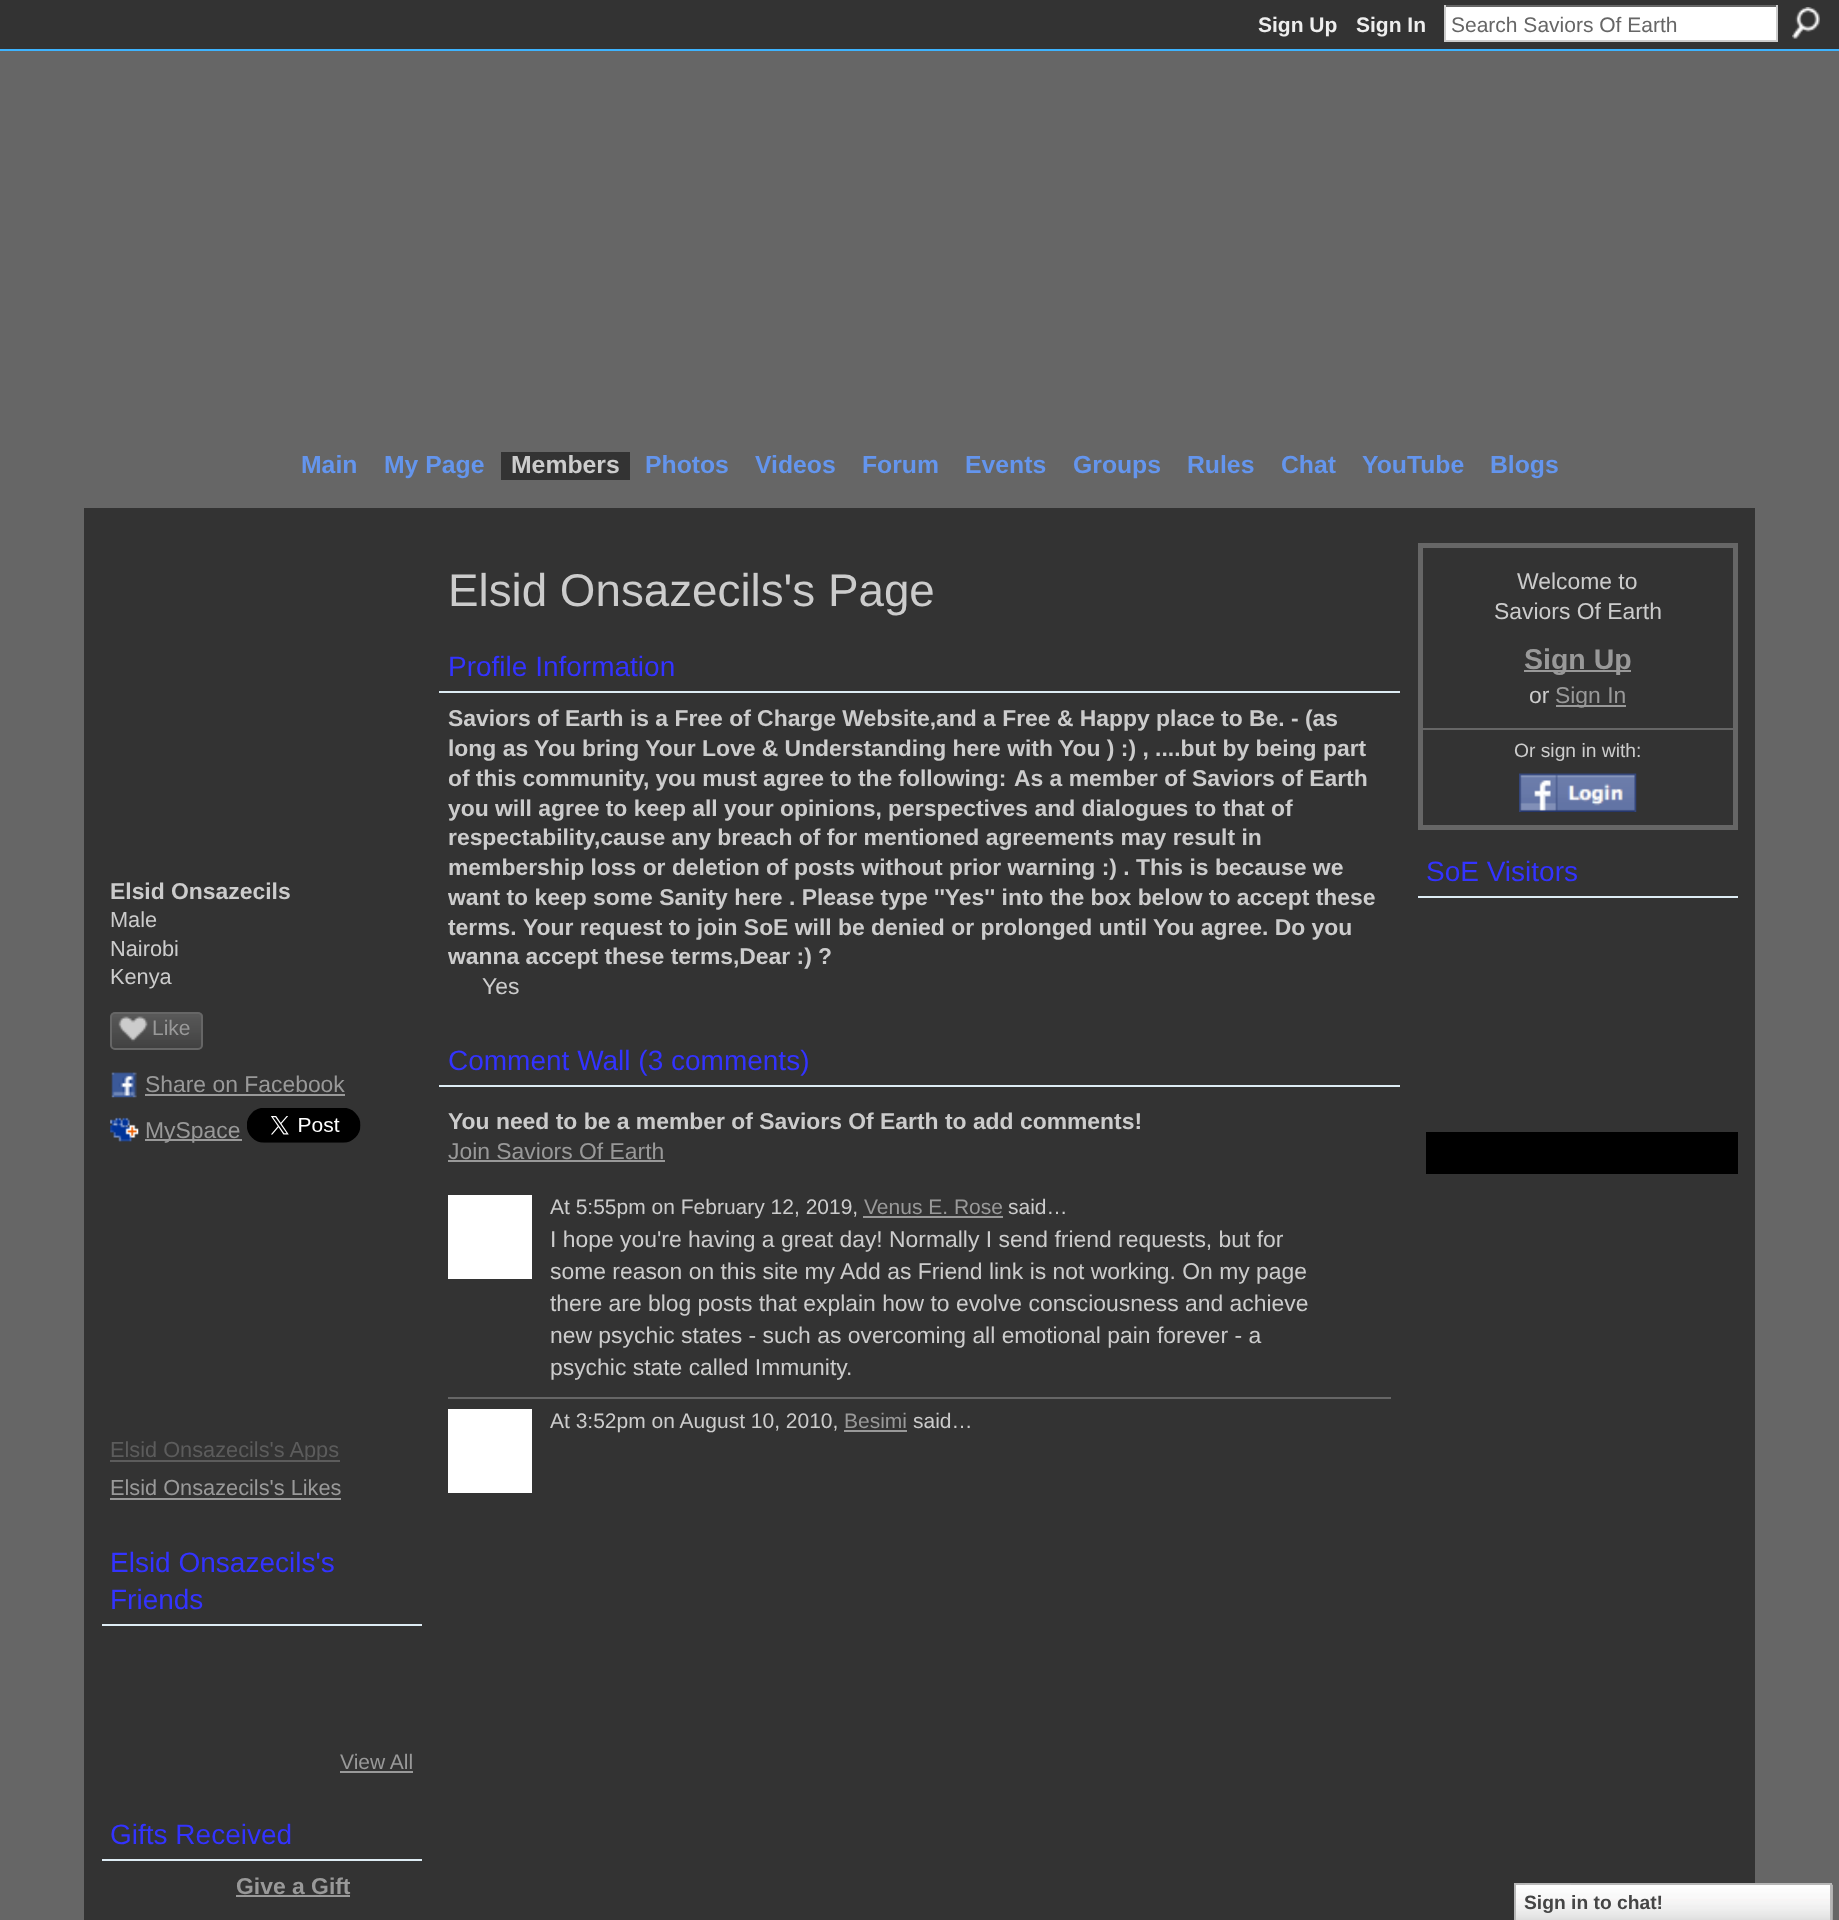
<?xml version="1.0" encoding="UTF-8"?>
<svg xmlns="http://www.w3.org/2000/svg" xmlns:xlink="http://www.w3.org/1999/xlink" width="1839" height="1920">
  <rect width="100%" height="100%" fill="#666666" />
  <rect width="1839" height="49" fill="#333333" />
  <rect y="49" width="1839" height="2" fill="#3eb4ff" />
  <rect x="1446" y="7" width="330" height="33" fill="#ffffff" />
  <rect x="1444" y="5" width="334" height="2" fill="#666666" />
  <rect x="1776" y="5" width="2" height="37" fill="#cccccc" />
  <rect x="1444" y="40" width="334" height="2" fill="#cccccc" />
  <rect x="1444" y="5" width="2" height="37" fill="#cccccc" />
  <image x="1792" y="7" width="28" height="32" xlink:href="image1.png" />
  <rect x="501" y="452" width="129" height="28" fill="#333333" />
  <rect x="84" y="508" width="1671" height="1412" fill="#333333" />
  <image x="110" y="1013" width="93" height="37" xlink:href="image2.png" />
  <rect x="111" y="1013" width="91" height="36" rx="4" fill="none" stroke="#666666" stroke-width="2" />
  <image x="118" y="1016" width="30" height="26" xlink:href="image3.png" />
  <image x="111" y="1072" width="26" height="26" xlink:href="image4.png" />
  <rect x="145" y="1094" width="200" height="2" fill="#999999" />
  <image x="110" y="1117" width="29" height="25" xlink:href="image5.png" />
  <rect x="145" y="1139" width="97" height="2" fill="#999999" />
  <image x="247" y="1108" width="114" height="35" xlink:href="image6.png" />
  <rect x="110" y="1460" width="230" height="2" fill="#5c5c5c" />
  <rect x="110" y="1498" width="231" height="2" fill="#999999" />
  <rect x="102" y="1624" width="320" height="2" fill="#deecf4" />
  <rect x="340" y="1771" width="73" height="2" fill="#999999" />
  <rect x="102" y="1859" width="320" height="2" fill="#deecf4" />
  <rect x="236" y="1895" width="114" height="2" fill="#999999" />
  <rect x="439" y="691" width="961" height="2" fill="#deecf4" />
  <rect x="439" y="1085" width="961" height="2" fill="#deecf4" />
  <rect x="448" y="1160" width="217" height="2" fill="#999999" />
  <rect x="448" y="1397" width="943" height="2" fill="#666666" />
  <rect x="448" y="1195" width="84" height="84" fill="#ffffff" />
  <rect x="863" y="1216" width="140" height="2" fill="#999999" />
  <rect x="448" y="1409" width="84" height="84" fill="#ffffff" />
  <rect x="844" y="1430" width="63" height="2" fill="#999999" />
  <rect x="1420.5" y="545.5" width="315" height="282" fill="none" stroke="#666666" stroke-width="5" />
  <rect x="1524" y="670" width="107" height="2" fill="#999999" />
  <rect x="1556" y="705" width="70" height="2" fill="#999999" />
  <rect x="1423" y="728" width="310" height="2" fill="#666666" />
  <image x="1519" y="773" width="118" height="39" xlink:href="image7.png" />
  <rect x="1418" y="896" width="320" height="2" fill="#deecf4" />
  <rect x="1426" y="1132" width="312" height="42" fill="#000000" />
  <image x="1516" y="1884" width="317" height="36" xlink:href="image8.png" />
  <rect x="1515" y="1884" width="316" height="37" fill="none" stroke="#b7b7b7" stroke-width="2" />
  <rect x="1525" y="1884" width="46" height="1" fill="#bbbbbb" />
  <text x="1258" y="32" style="font-family: Liberation Sans; font-size: 21px; font-weight: bold; fill: #eeeeee">Sign Up</text>
  <text x="1356" y="32" style="font-family: Liberation Sans; font-size: 21px; font-weight: bold; fill: #eeeeee">Sign In</text>
  <text x="1451" y="32" style="font-family: Liberation Sans; font-size: 21px; fill: #666666">Search Saviors Of Earth</text>
  <text x="301" y="473" style="font-family: Liberation Sans; font-size: 24.75px; font-weight: bold; fill: #6495ed">Main</text>
  <text x="384" y="473" style="font-family: Liberation Sans; font-size: 24.75px; font-weight: bold; fill: #6495ed">My Page</text>
  <text x="511" y="473" style="font-family: Liberation Sans; font-size: 24.75px; font-weight: bold; fill: #cccccc">Members</text>
  <text x="645" y="473" style="font-family: Liberation Sans; font-size: 24.75px; font-weight: bold; fill: #6495ed">Photos</text>
  <text x="755" y="473" style="font-family: Liberation Sans; font-size: 24.75px; font-weight: bold; fill: #6495ed">Videos</text>
  <text x="862" y="473" style="font-family: Liberation Sans; font-size: 24.75px; font-weight: bold; fill: #6495ed">Forum</text>
  <text x="965" y="473" style="font-family: Liberation Sans; font-size: 24.75px; font-weight: bold; fill: #6495ed">Events</text>
  <text x="1073" y="473" style="font-family: Liberation Sans; font-size: 24.75px; font-weight: bold; fill: #6495ed">Groups</text>
  <text x="1187" y="473" style="font-family: Liberation Sans; font-size: 24.75px; font-weight: bold; fill: #6495ed">Rules</text>
  <text x="1281" y="473" style="font-family: Liberation Sans; font-size: 24.75px; font-weight: bold; fill: #6495ed">Chat</text>
  <text x="1362" y="473" style="font-family: Liberation Sans; font-size: 24.75px; font-weight: bold; fill: #6495ed">YouTube</text>
  <text x="1490" y="473" style="font-family: Liberation Sans; font-size: 24.75px; font-weight: bold; fill: #6495ed">Blogs</text>
  <text x="110" y="899" style="font-family: Liberation Sans; font-size: 22.9px; font-weight: bold; fill: #cccccc">Elsid Onsazecils</text>
  <text x="110" y="927" style="font-family: Liberation Sans; font-size: 21.75px; fill: #cccccc">Male</text>
  <text x="110" y="956" style="font-family: Liberation Sans; font-size: 21.75px; fill: #cccccc">Nairobi</text>
  <text x="110" y="984" style="font-family: Liberation Sans; font-size: 21.75px; fill: #cccccc">Kenya</text>
  <text x="152" y="1035" style="font-family: Liberation Sans; font-size: 21px; fill: #999999">Like</text>
  <text x="145" y="1092" style="font-family: Liberation Sans; font-size: 22.9px; fill: #999999">Share on Facebook</text>
  <text x="145" y="1138" style="font-family: Liberation Sans; font-size: 22.9px; fill: #999999">MySpace</text>
  <text x="110" y="1457" style="font-family: Liberation Sans; font-size: 21.75px; fill: #5c5c5c">Elsid Onsazecils's Apps</text>
  <text x="110" y="1495" style="font-family: Liberation Sans; font-size: 21.75px; fill: #999999">Elsid Onsazecils's Likes</text>
  <text x="110" y="1572" style="font-family: Liberation Sans; font-size: 28px; fill: #3333ff">Elsid Onsazecils's</text>
  <text x="110" y="1609" style="font-family: Liberation Sans; font-size: 28px; fill: #3333ff">Friends</text>
  <text x="340" y="1769" style="font-family: Liberation Sans; font-size: 21px; fill: #999999">View All</text>
  <text x="110" y="1844" style="font-family: Liberation Sans; font-size: 28px; fill: #3333ff">Gifts Received</text>
  <text x="236" y="1894" style="font-family: Liberation Sans; font-size: 22.9px; font-weight: bold; fill: #999999">Give a Gift</text>
  <text x="448" y="606" style="font-family: Liberation Sans; font-size: 45.75px; fill: #cccccc">Elsid Onsazecils's Page</text>
  <text x="448" y="676" style="font-family: Liberation Sans; font-size: 28px; fill: #3333ff">Profile Information</text>
  <text x="448" y="726" style="font-family: Liberation Sans; font-size: 22.9px; font-weight: bold; fill: #cccccc">Saviors of Earth is a Free of Charge Website,and a Free &amp; Happy place to Be. - (as</text>
  <text x="448" y="756" style="font-family: Liberation Sans; font-size: 22.9px; font-weight: bold; fill: #cccccc">long as You bring Your Love &amp; Understanding here with You ) :) , ....but by being part</text>
  <text x="448" y="786" word-spacing="-0.25" style="font-family: Liberation Sans; font-size: 22.9px; font-weight: bold; fill: #cccccc">of this community, you must agree to the following:</text>
  <text x="1014" y="786" style="font-family: Liberation Sans; font-size: 22.9px; font-weight: bold; fill: #cccccc">As a member of Saviors of Earth</text>
  <text x="448" y="816" style="font-family: Liberation Sans; font-size: 22.9px; font-weight: bold; fill: #cccccc">you will agree to keep all your opinions, perspectives and dialogues to that of</text>
  <text x="448" y="845" style="font-family: Liberation Sans; font-size: 22.9px; font-weight: bold; fill: #cccccc">respectability,cause any breach of for mentioned agreements may result in</text>
  <text x="448" y="875" style="font-family: Liberation Sans; font-size: 22.9px; font-weight: bold; fill: #cccccc">membership loss or deletion of posts without prior warning :) . This is because we</text>
  <text x="448" y="905" style="font-family: Liberation Sans; font-size: 22.9px; font-weight: bold; fill: #cccccc">want to keep some Sanity here . Please type ''Yes'' into the box below to accept these</text>
  <text x="448" y="935" style="font-family: Liberation Sans; font-size: 22.9px; font-weight: bold; fill: #cccccc">terms.</text>
  <text x="523" y="935" style="font-family: Liberation Sans; font-size: 22.9px; font-weight: bold; fill: #cccccc">Your request to join SoE will be denied or prolonged until You agree. Do you</text>
  <text x="448" y="964" style="font-family: Liberation Sans; font-size: 22.9px; font-weight: bold; fill: #cccccc">wanna accept these terms,Dear :)</text>
  <text x="818" y="964" style="font-family: Liberation Sans; font-size: 22.9px; font-weight: bold; fill: #cccccc">?</text>
  <text x="482" y="994" style="font-family: Liberation Sans; font-size: 22.9px; fill: #cccccc">Yes</text>
  <text x="448" y="1070" style="font-family: Liberation Sans; font-size: 28px; fill: #3333ff">Comment Wall (3 comments)</text>
  <text x="448" y="1129" style="font-family: Liberation Sans; font-size: 22.9px; font-weight: bold; fill: #cccccc">You need to be a member of Saviors Of Earth to add comments!</text>
  <text x="448" y="1159" style="font-family: Liberation Sans; font-size: 22.9px; fill: #999999">Join Saviors Of Earth</text>
  <text x="550" y="1214" style="font-family: Liberation Sans; font-size: 21px; fill: #cccccc">At 5:55pm on February 12, 2019,</text>
  <text x="864" y="1214" style="font-family: Liberation Sans; font-size: 21px; fill: #999999">Venus E. Rose</text>
  <text x="1008" y="1214" style="font-family: Liberation Sans; font-size: 21px; fill: #cccccc">said…</text>
  <text x="550" y="1247" style="font-family: Liberation Sans; font-size: 22.9px; fill: #cccccc">I hope you're having a great day! Normally I send friend requests, but for</text>
  <text x="550" y="1279" style="font-family: Liberation Sans; font-size: 22.9px; fill: #cccccc">some reason on this site my Add as Friend link is not working. On my page</text>
  <text x="550" y="1311" style="font-family: Liberation Sans; font-size: 22.9px; fill: #cccccc">there are blog posts that explain how to evolve consciousness and achieve</text>
  <text x="550" y="1343" style="font-family: Liberation Sans; font-size: 22.9px; fill: #cccccc">new psychic states - such as overcoming all emotional pain forever - a</text>
  <text x="550" y="1375" style="font-family: Liberation Sans; font-size: 22.9px; fill: #cccccc">psychic state called Immunity.</text>
  <text x="550" y="1428" style="font-family: Liberation Sans; font-size: 21px; fill: #cccccc">At 3:52pm on August 10, 2010,</text>
  <text x="844" y="1428" style="font-family: Liberation Sans; font-size: 21px; fill: #999999">Besimi</text>
  <text x="913" y="1428" style="font-family: Liberation Sans; font-size: 21px; fill: #cccccc">said…</text>
  <text x="1517" y="589" style="font-family: Liberation Sans; font-size: 22.9px; fill: #cccccc">Welcome to</text>
  <text x="1494" y="619" style="font-family: Liberation Sans; font-size: 22.9px; fill: #cccccc">Saviors Of Earth</text>
  <text x="1524" y="669" style="font-family: Liberation Sans; font-size: 28.5px; font-weight: bold; fill: #999999">Sign Up</text>
  <text x="1529" y="703" style="font-family: Liberation Sans; font-size: 22.9px; fill: #cccccc">or</text>
  <text x="1555" y="703" style="font-family: Liberation Sans; font-size: 22.9px; fill: #999999">Sign In</text>
  <text x="1514" y="757" style="font-family: Liberation Sans; font-size: 19.25px; fill: #cccccc">Or sign in with:</text>
  <text x="1426" y="881" style="font-family: Liberation Sans; font-size: 28px; fill: #3333ff">SoE Visitors</text>
  <text x="1524" y="1909" style="font-family: Liberation Sans; font-size: 19.25px; font-weight: bold; fill: #454545">Sign in to chat!</text>
</svg>
